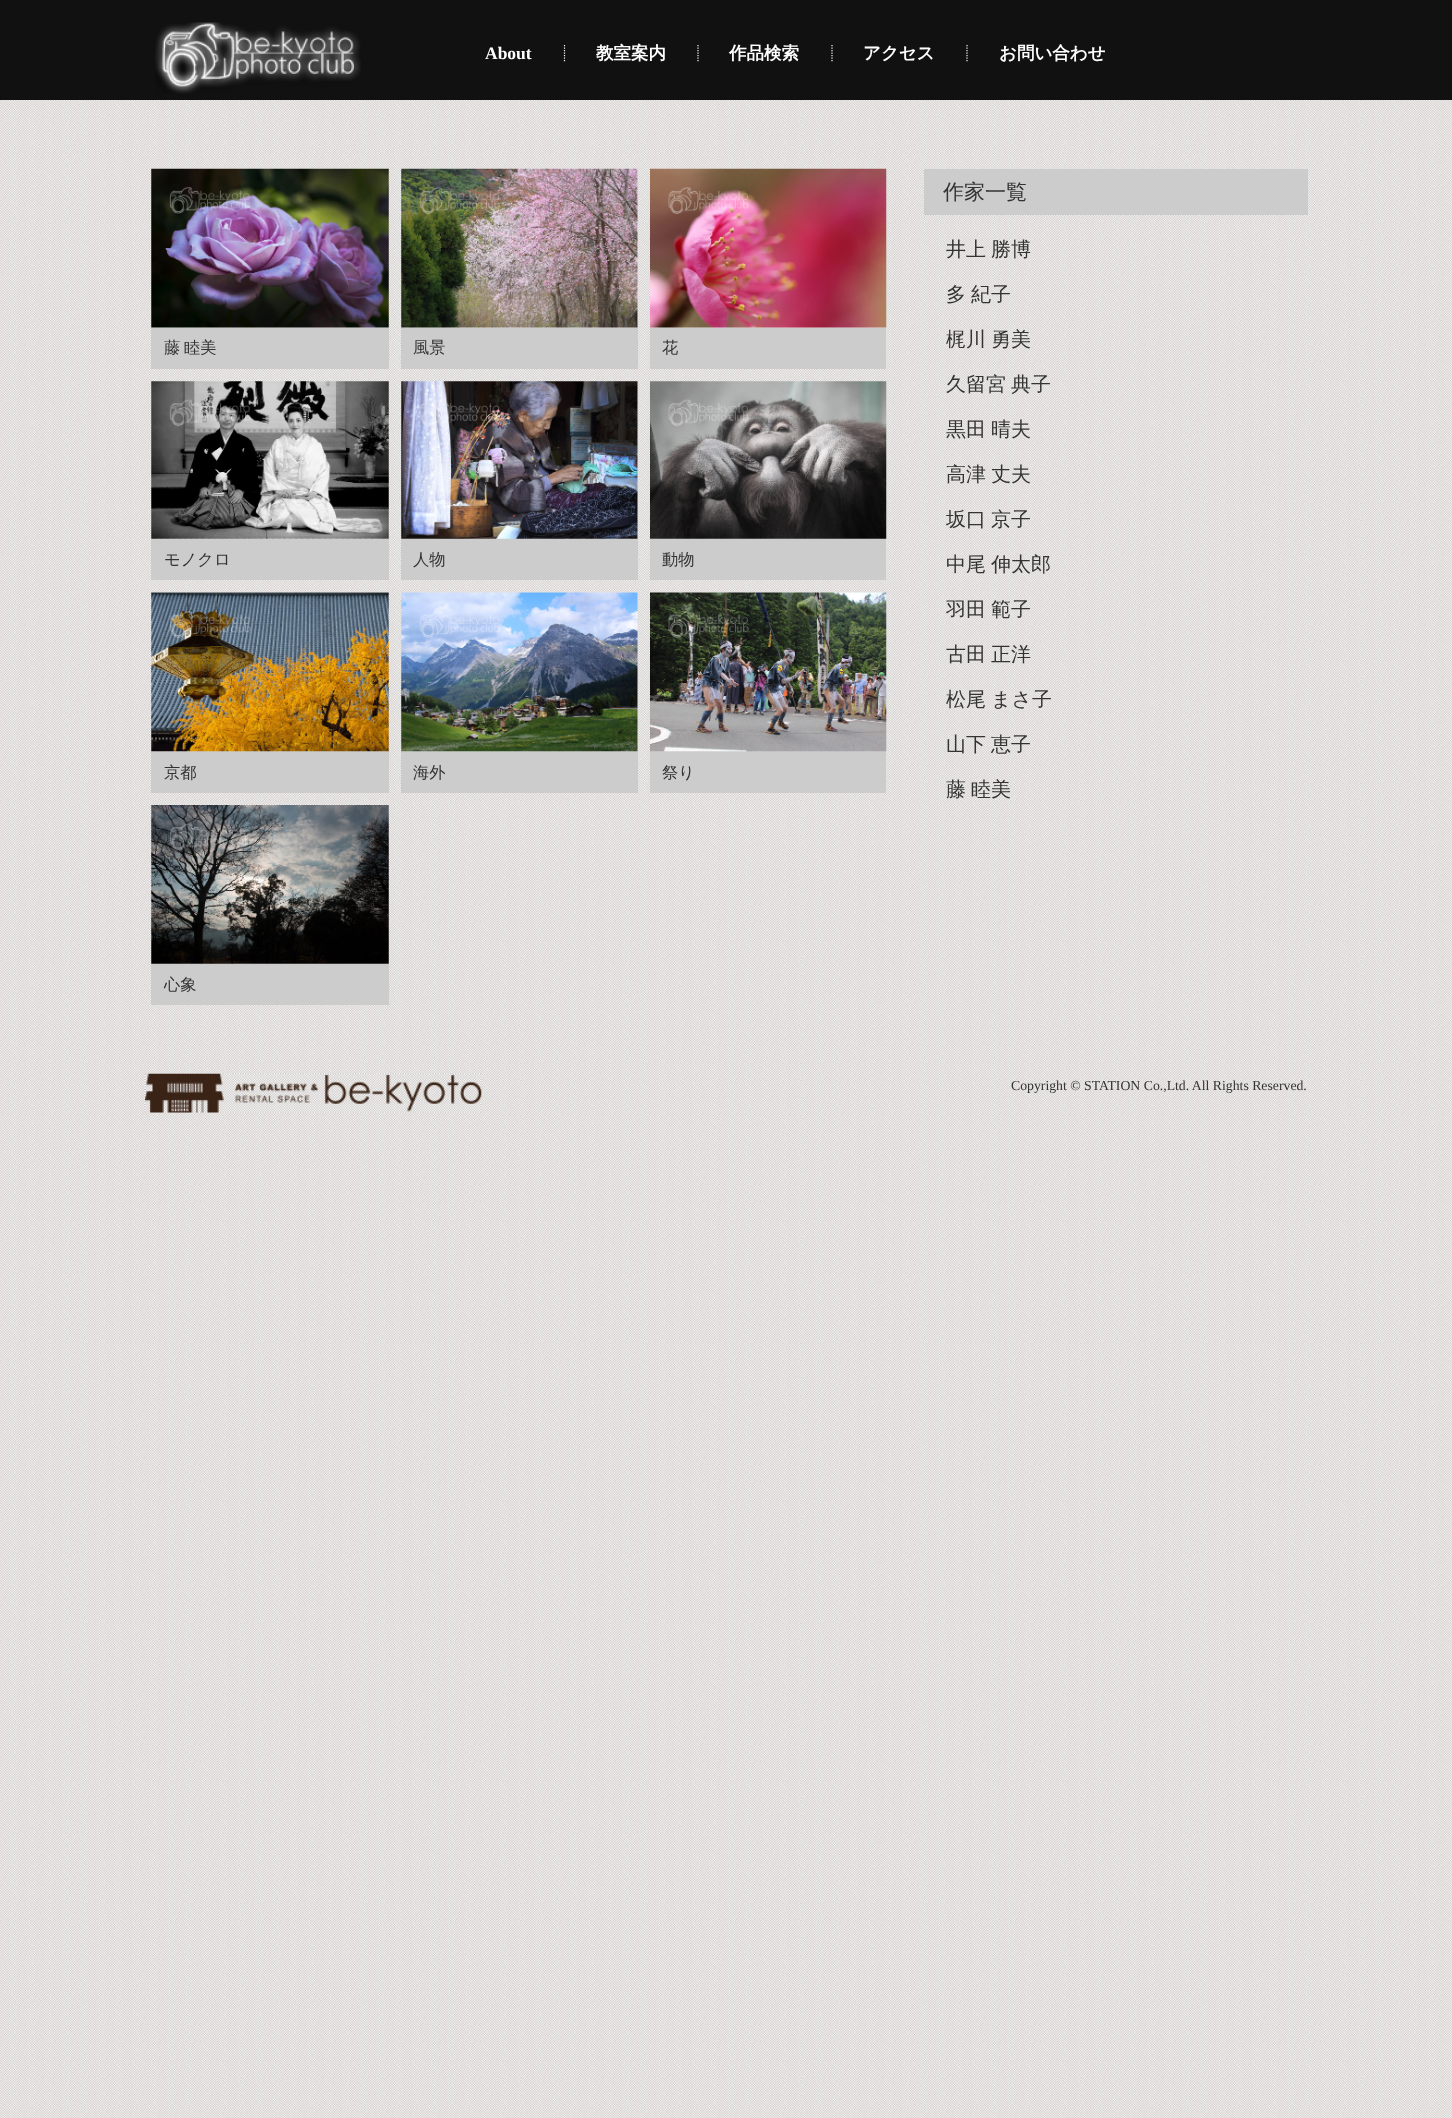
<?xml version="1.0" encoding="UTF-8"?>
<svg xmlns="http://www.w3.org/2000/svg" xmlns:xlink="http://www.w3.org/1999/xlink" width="1452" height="2118">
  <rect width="100%" height="100%" fill="#ffffff" />
  <image x="0" y="100" width="1452" height="2018" xlink:href="image1.png" />
  <rect width="1452" height="100" fill="#111111" />
  <image x="155" y="22" width="206" height="72" xlink:href="image2.png" />
  <path d="M 564.5 45 v 17.5" fill="none" stroke="#ffffff" stroke-width="1.2" stroke-dasharray="1.25 1.25" />
  <path d="M 698 45 v 17.5" fill="none" stroke="#ffffff" stroke-width="1.2" stroke-dasharray="1.25 1.25" />
  <path d="M 832 45 v 17.5" fill="none" stroke="#ffffff" stroke-width="1.2" stroke-dasharray="1.25 1.25" />
  <path d="M 967 45 v 17.5" fill="none" stroke="#ffffff" stroke-width="1.2" stroke-dasharray="1.25 1.25" />
  <image x="151" y="168" width="238" height="160" xlink:href="image3.png" />
  <rect x="151" y="328" width="238" height="41" fill="#cccccc" />
  <image x="401" y="168" width="237" height="160" xlink:href="image4.png" />
  <rect x="401" y="328" width="237" height="41" fill="#cccccc" />
  <image x="650" y="168" width="237" height="160" xlink:href="image5.png" />
  <rect x="650" y="328" width="236" height="41" fill="#cccccc" />
  <image x="151" y="381" width="238" height="158" xlink:href="image6.png" />
  <rect x="151" y="539" width="238" height="41" fill="#cccccc" />
  <image x="401" y="381" width="237" height="158" xlink:href="image7.png" />
  <rect x="401" y="539" width="237" height="41" fill="#cccccc" />
  <image x="650" y="381" width="237" height="158" xlink:href="image8.png" />
  <rect x="650" y="539" width="236" height="41" fill="#cccccc" />
  <rect x="151" y="751" width="238" height="42" fill="#cccccc" />
  <image x="151" y="592" width="238" height="160" xlink:href="image9.png" />
  <rect x="401" y="751" width="237" height="42" fill="#cccccc" />
  <image x="401" y="592" width="237" height="160" xlink:href="image10.png" />
  <rect x="650" y="751" width="236" height="42" fill="#cccccc" />
  <image x="650" y="592" width="237" height="160" xlink:href="image11.png" />
  <image x="151" y="805" width="238" height="159" xlink:href="image12.png" />
  <rect x="151" y="964" width="238" height="41" fill="#cccccc" />
  <rect x="924" y="169" width="384" height="46" fill="#cccccc" />
  <image x="145" y="1073" width="337" height="40" xlink:href="image13.png" />
  <text x="485" y="59" style="font-family: Liberation Serif; font-size: 17.5px; font-weight: bold; fill: #ffffff">About</text>
  <text x="596" y="59" style="font-family: WenQuanYi Zen Hei; font-size: 17.5px; font-weight: bold; fill: #ffffff">教室案内</text>
  <text x="729" y="59" style="font-family: WenQuanYi Zen Hei; font-size: 17.5px; font-weight: bold; fill: #ffffff">作品検索</text>
  <text x="863" y="59" style="font-family: WenQuanYi Zen Hei; font-size: 17.5px; font-weight: bold; fill: #ffffff">アクセス</text>
  <text x="999" y="59" style="font-family: WenQuanYi Zen Hei; font-size: 17.5px; font-weight: bold; fill: #ffffff">お問い合わせ</text>
  <text x="164" y="353" word-spacing="-1" style="font-family: WenQuanYi Zen Hei; font-size: 16.25px; font-weight: 500; fill: #333333">藤 睦美</text>
  <text x="413" y="353" style="font-family: WenQuanYi Zen Hei; font-size: 16.25px; font-weight: 500; fill: #333333">風景</text>
  <text x="662" y="353" style="font-family: WenQuanYi Zen Hei; font-size: 16.25px; font-weight: 500; fill: #333333">花</text>
  <text x="164" y="565" style="font-family: WenQuanYi Zen Hei; font-size: 16.25px; font-weight: 500; fill: #333333">モノクロ</text>
  <text x="413" y="565" style="font-family: WenQuanYi Zen Hei; font-size: 16.25px; font-weight: 500; fill: #333333">人物</text>
  <text x="662" y="565" style="font-family: WenQuanYi Zen Hei; font-size: 16.25px; font-weight: 500; fill: #333333">動物</text>
  <text x="164" y="778" style="font-family: WenQuanYi Zen Hei; font-size: 16.25px; font-weight: 500; fill: #333333">京都</text>
  <text x="413" y="778" style="font-family: WenQuanYi Zen Hei; font-size: 16.25px; font-weight: 500; fill: #333333">海外</text>
  <text x="662" y="778" style="font-family: WenQuanYi Zen Hei; font-size: 16.25px; font-weight: 500; fill: #333333">祭り</text>
  <text x="164" y="990" style="font-family: WenQuanYi Zen Hei; font-size: 16.25px; font-weight: 500; fill: #333333">心象</text>
  <text x="943" y="199" style="font-family: WenQuanYi Zen Hei; font-size: 21px; font-weight: 500; fill: #333333">作家一覧</text>
  <text x="946" y="256" word-spacing="-1" style="font-family: WenQuanYi Zen Hei; font-size: 20px; font-weight: 500; fill: #333333">井上 勝博</text>
  <text x="946" y="301" word-spacing="-1" style="font-family: WenQuanYi Zen Hei; font-size: 20px; font-weight: 500; fill: #333333">多 紀子</text>
  <text x="946" y="346" word-spacing="-1" style="font-family: WenQuanYi Zen Hei; font-size: 20px; font-weight: 500; fill: #333333">梶川 勇美</text>
  <text x="946" y="391" word-spacing="-1" style="font-family: WenQuanYi Zen Hei; font-size: 20px; font-weight: 500; fill: #333333">久留宮 典子</text>
  <text x="946" y="436" word-spacing="-1" style="font-family: WenQuanYi Zen Hei; font-size: 20px; font-weight: 500; fill: #333333">黒田 晴夫</text>
  <text x="946" y="481" word-spacing="-1" style="font-family: WenQuanYi Zen Hei; font-size: 20px; font-weight: 500; fill: #333333">高津 丈夫</text>
  <text x="946" y="526" word-spacing="-1" style="font-family: WenQuanYi Zen Hei; font-size: 20px; font-weight: 500; fill: #333333">坂口 京子</text>
  <text x="946" y="571" word-spacing="-1" style="font-family: WenQuanYi Zen Hei; font-size: 20px; font-weight: 500; fill: #333333">中尾 伸太郎</text>
  <text x="946" y="616" word-spacing="-1" style="font-family: WenQuanYi Zen Hei; font-size: 20px; font-weight: 500; fill: #333333">羽田 範子</text>
  <text x="946" y="661" word-spacing="-1" style="font-family: WenQuanYi Zen Hei; font-size: 20px; font-weight: 500; fill: #333333">古田 正洋</text>
  <text x="946" y="706" word-spacing="-1" style="font-family: WenQuanYi Zen Hei; font-size: 20px; font-weight: 500; fill: #333333">松尾 まさ子</text>
  <text x="946" y="751" word-spacing="-1" style="font-family: WenQuanYi Zen Hei; font-size: 20px; font-weight: 500; fill: #333333">山下 恵子</text>
  <text x="946" y="796" word-spacing="-1" style="font-family: WenQuanYi Zen Hei; font-size: 20px; font-weight: 500; fill: #333333">藤 睦美</text>
  <text x="1011" y="1090" style="font-family: Liberation Serif; font-size: 13.75px; fill: #333333">Copyright © STATION Co.,Ltd. All Rights Reserved.</text>
</svg>
